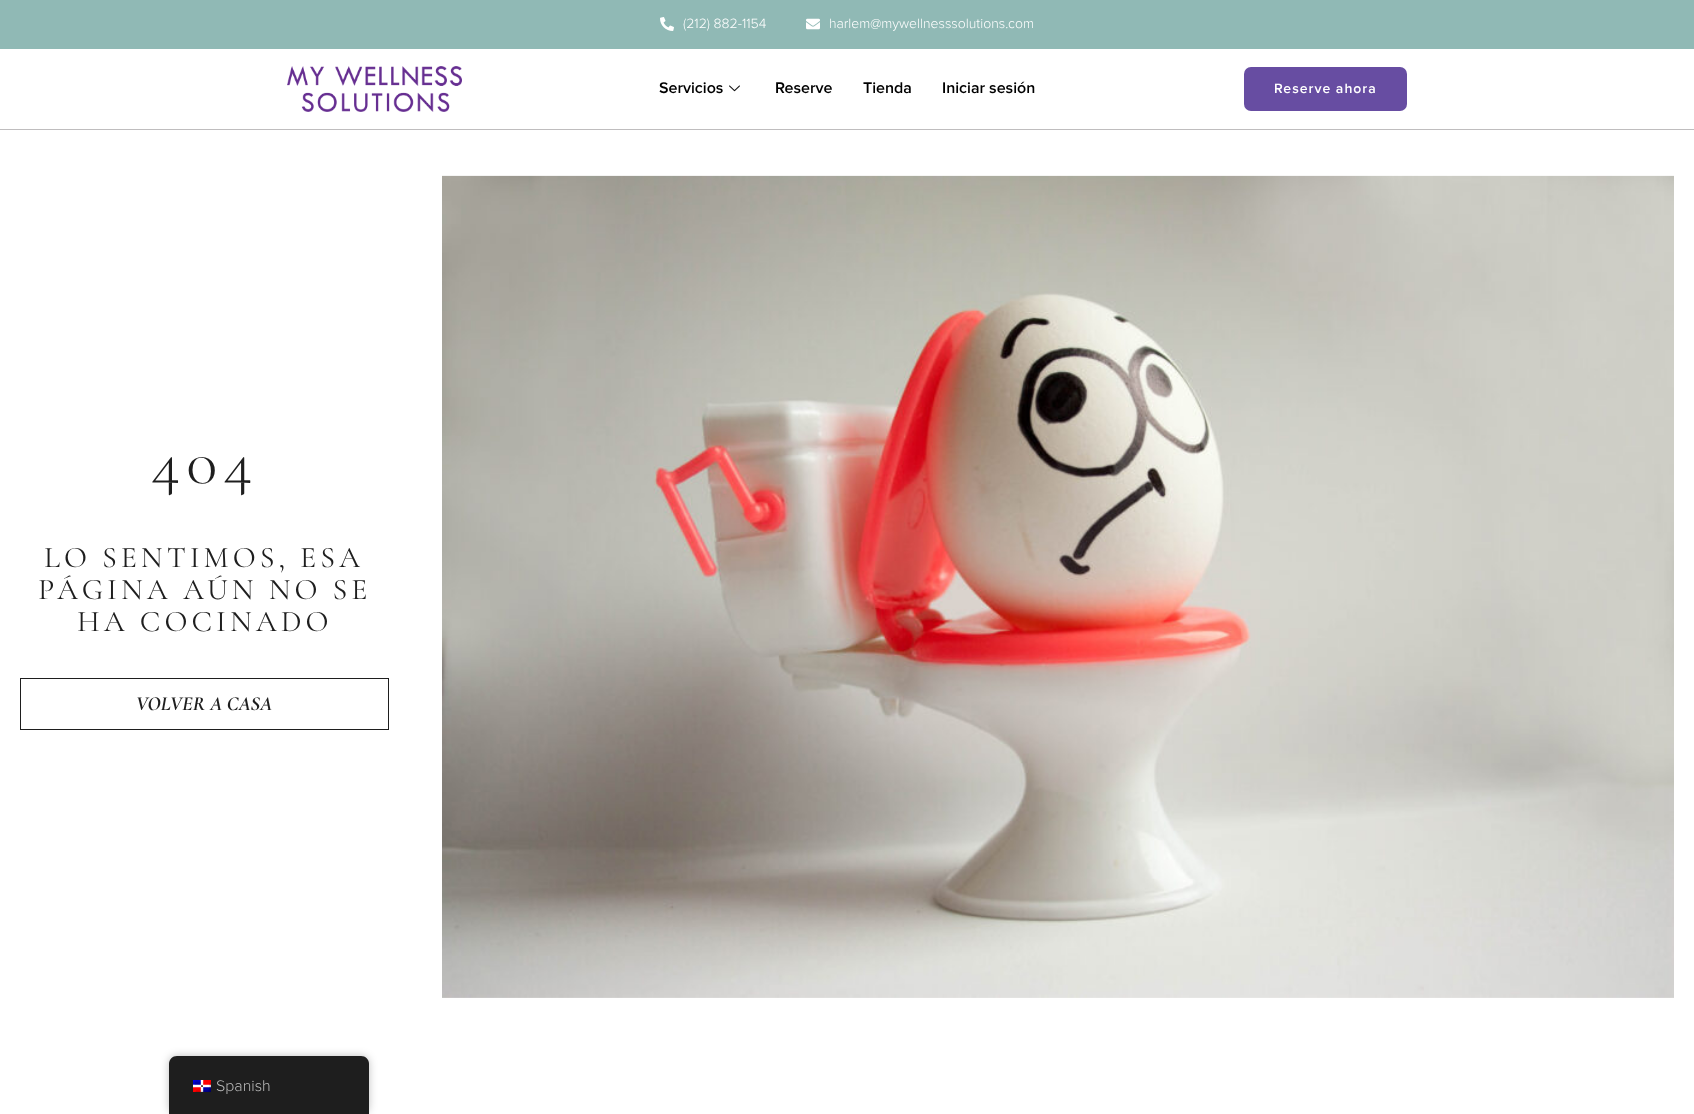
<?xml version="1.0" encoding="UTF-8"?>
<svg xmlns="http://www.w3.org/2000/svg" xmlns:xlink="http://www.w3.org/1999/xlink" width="1694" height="1114">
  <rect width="100%" height="100%" fill="#ffffff" />
  <rect width="1694" height="49" fill="#90b9b5" />
  <image x="660" y="17" width="14" height="14" xlink:href="image1.png" />
  <image x="806" y="18" width="14" height="12" xlink:href="image2.png" />
  <rect y="129" width="1694" height="1" fill="#bfbdbe" />
  <image x="287" y="66" width="175" height="46" xlink:href="image3.png" />
  <image x="729" y="85" width="11" height="7" xlink:href="image4.png" />
  <rect x="1244" y="67" width="163" height="44" rx="7" fill="#674da2" />
  <rect x="20.5" y="678.5" width="368" height="51" fill="none" stroke="#1e1e1e" />
  <image x="442" y="175" width="1232" height="823" xlink:href="image5.png" />
  <rect x="169" y="1056" width="200" height="58" rx="8" fill="#000000" fill-opacity="0.25" filter="blur(4px)" />
  <path d="M 177 1056 h 184 c 4.5 0 8 3.5 8 8 v 50 h -200 v -50 c 0 -4.5 3.5 -8 8 -8 z" fill="#1e1e1e" />
  <image x="193" y="1080" width="18" height="12" xlink:href="image6.png" />
  <text x="683" y="28" style="font-family: Proxima Nova; font-size: 14px; font-weight: 300; fill: #ffffff">(212) 882-1154</text>
  <text x="829" y="28" style="font-family: Proxima Nova; font-size: 14px; font-weight: 300; fill: #ffffff">harlem@mywellnesssolutions.com</text>
  <text x="659" y="93" style="font-family: Proxima Nova; font-size: 16px; font-weight: 600; fill: #000000">Servicios</text>
  <text x="775" y="93" style="font-family: Proxima Nova; font-size: 16px; font-weight: 600; fill: #000000">Reserve</text>
  <text x="863" y="93" style="font-family: Proxima Nova; font-size: 16px; font-weight: 600; fill: #000000">Tienda</text>
  <text x="942" y="93" style="font-family: Proxima Nova; font-size: 16px; font-weight: 600; fill: #000000">Iniciar sesión</text>
  <text x="1274" y="93" style="font-family: Proxima Nova; font-size: 14px; font-weight: 600; letter-spacing: 1px; fill: #ffffff">Reserve ahora</text>
  <text x="151" y="483" style="font-family: Cormorant Garamond; font-size: 65px; font-weight: 300; letter-spacing: 6px; fill: #1e1e1e">404</text>
  <text x="44" y="567" style="font-family: Cormorant Garamond; font-size: 30px; letter-spacing: 4px; fill: #1e1e1e">LO SENTIMOS, ESA</text>
  <text x="38" y="599" style="font-family: Cormorant Garamond; font-size: 30px; letter-spacing: 4px; fill: #1e1e1e">PÁGINA AÚN NO SE</text>
  <text x="77" y="631" style="font-family: Cormorant Garamond; font-size: 30px; letter-spacing: 4px; fill: #1e1e1e">HA COCINADO</text>
  <text x="136" y="710" style="font-family: Cormorant Garamond; font-size: 20px; font-weight: bold; font-style: italic; fill: #1e1e1e">VOLVER A CASA</text>
  <text x="216" y="1091" style="font-family: Proxima Nova; font-size: 16px; font-weight: 300; fill: #bdbdbd">Spanish</text>
</svg>
